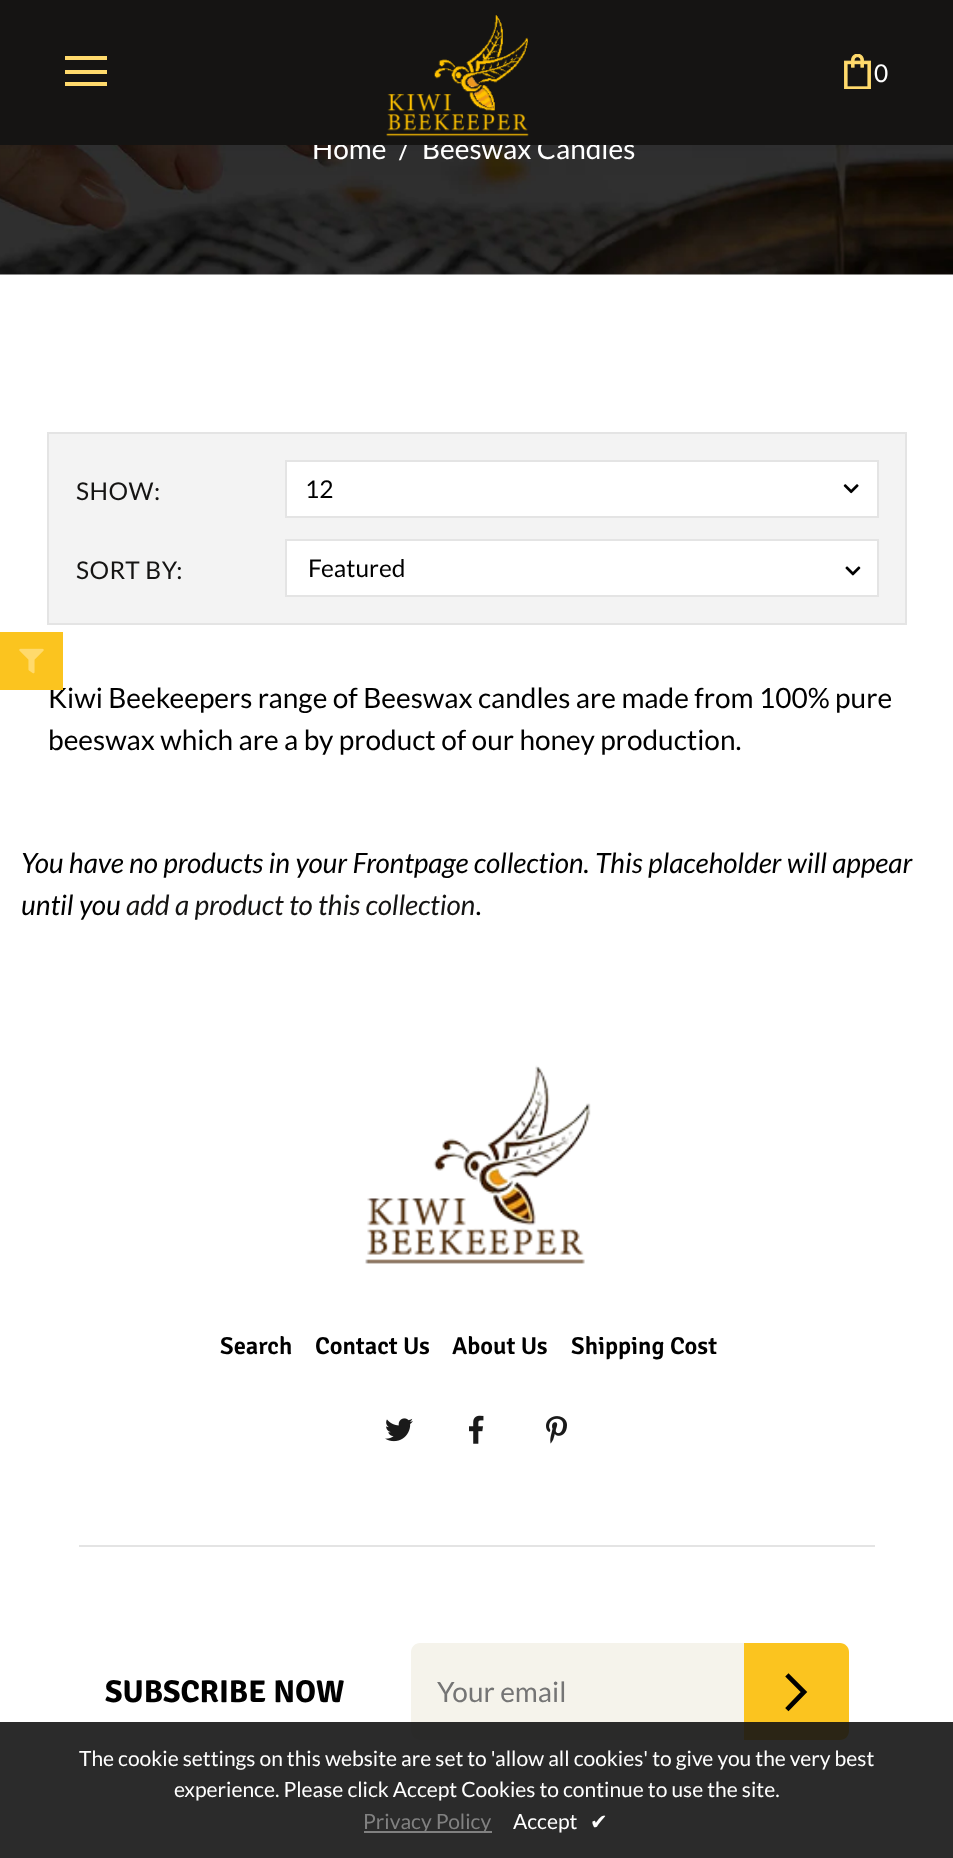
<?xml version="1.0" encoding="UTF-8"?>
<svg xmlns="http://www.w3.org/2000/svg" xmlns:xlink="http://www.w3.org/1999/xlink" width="953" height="1858">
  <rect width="100%" height="100%" fill="#ffffff" />
  <image x="0" y="145" width="953" height="130" xlink:href="image3.png" />
  <rect width="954" height="145" fill="#030d1d" fill-opacity="0.06" filter="blur(17.5px)" />
  <rect x="48" y="433" width="858" height="191" fill="#f3f3f3" stroke="#e4e4e4" stroke-width="2" />
  <rect x="286" y="461" width="592" height="56" fill="#ffffff" stroke="#e4e4e4" stroke-width="2" />
  <image x="843" y="484" width="16" height="10" xlink:href="image4.png" />
  <rect x="286" y="540" width="592" height="56" fill="#ffffff" stroke="#e4e4e4" stroke-width="2" />
  <image x="845" y="566" width="16" height="10" xlink:href="image5.png" />
  <image x="365" y="1065" width="226" height="199" xlink:href="image7.png" />
  <image x="385" y="1418" width="28" height="24" xlink:href="image8.png" />
  <image x="469" y="1415" width="15" height="29" xlink:href="image9.png" />
  <image x="546" y="1416" width="21" height="28" xlink:href="image10.png" />
  <rect x="79" y="1545" width="796" height="2" fill="#e4e4e4" />
  <path d="M 744 1643 h 96 c 5 0 9 4 9 9 v 79 c 0 5 -4 9 -9 9 h -96 z" fill="#fbc41f" />
  <path d="M 420 1643 h 324 v 97 h -324 c -5 0 -9 -4 -9 -9 v -79 c 0 -5 4 -9 9 -9 z" fill="#f5f3eb" />
  <path d="M 786.5 1708 l 2 2 l 17.5 -18 l -17.5 -17.5 l -2 2 l 15.5 15.5 z" fill="#000000" stroke="#000000" stroke-width="1.8" />
  <rect y="1722" width="953" height="136" fill="#141414" fill-opacity="0.9" />
  <rect x="364" y="1831" width="128" height="2" fill="#818181" />
  <text x="312" y="159" style="font-family: Lato; font-size: 28px; fill: #ffffff">Home</text>
  <text x="399" y="159" style="font-family: Lato; font-size: 28px; fill: #ffffff">/</text>
  <text x="422" y="159" style="font-family: Lato; font-size: 28px; fill: #ffffff">Beeswax Candles</text>
  <rect width="953" height="145" fill="#151413" />
  <image x="386" y="15" width="143" height="122" xlink:href="image1.png" />
  <rect x="65" y="82" width="42" height="4" fill="#ffda6c" />
  <rect x="65" y="70" width="42" height="4" fill="#ffda6c" />
  <rect x="65" y="56" width="42" height="4" fill="#ffda6c" />
  <image x="844" y="54" width="27" height="35" xlink:href="image2.png" />
  <text x="874" y="82" style="font-family: Lato; font-size: 24.5px; fill: #ffffff">0</text>
  <text x="76" y="500" style="font-family: Lato; font-size: 24.5px; letter-spacing: 0.5px; fill: #151413">SHOW:</text>
  <text x="305" y="498" style="font-family: Lato; font-size: 24.5px; fill: #000000">12</text>
  <text x="76" y="579" style="font-family: Lato; font-size: 24.5px; letter-spacing: 0.5px; fill: #151413">SORT BY:</text>
  <text x="308" y="577" style="font-family: Lato; font-size: 24.5px; fill: #000000">Featured</text>
  <text x="48" y="708" style="font-family: Lato; font-size: 28px; fill: #000000">Kiwi Beekeepers range of Beeswax candles are made from 100% pure</text>
  <rect y="632" width="63" height="58" fill="#fbc41f" />
  <image x="19" y="648" width="25" height="26" xlink:href="image6.png" />
  <text x="48" y="750" style="font-family: Lato; font-size: 28px; fill: #000000">beeswax which are a by product of our honey production.</text>
  <text x="21" y="873" style="font-family: Lato; font-size: 28px; font-style: italic; fill: #000000">You have no products in your Frontpage collection. This placeholder will appear</text>
  <text x="21" y="915" style="font-family: Lato; font-size: 28px; font-style: italic; fill: #000000">until you</text>
  <text x="126" y="915" style="font-family: Lato; font-size: 28px; font-style: italic; fill: #151413">add a product to this collection</text>
  <text x="476" y="915" style="font-family: Lato; font-size: 28px; font-style: italic; fill: #000000">.</text>
  <text x="220" y="1354" style="font-family: Signika; font-size: 24.5px; font-weight: 600; fill: #000000">Search</text>
  <text x="315" y="1354" style="font-family: Signika; font-size: 24.5px; font-weight: 600; fill: #000000">Contact Us</text>
  <text x="452" y="1354" style="font-family: Signika; font-size: 24.5px; font-weight: 600; fill: #000000">About Us</text>
  <text x="571" y="1354" style="font-family: Signika; font-size: 24.5px; font-weight: 600; fill: #000000">Shipping Cost</text>
  <text x="105" y="1702" style="font-family: Signika; font-size: 31.5px; font-weight: bold; fill: #000000">SUBSCRIBE NOW</text>
  <text x="437" y="1702" style="font-family: Lato; font-size: 28px; fill: #757575">Your email</text>
  <text x="79" y="1766" style="font-family: Lato; font-size: 21px; fill: #ffffff">The cookie settings on this website are set to 'allow all cookies' to give you the very best</text>
  <text x="174" y="1797" style="font-family: Lato; font-size: 21px; fill: #ffffff">experience. Please click Accept Cookies to continue to use the site.</text>
  <text x="363" y="1829" style="font-family: Lato; font-size: 21px; fill: #818181">Privacy Policy</text>
  <text x="513" y="1829" style="font-family: Lato; font-size: 21px; fill: #ffffff">Accept</text>
  <text x="590" y="1829" style="font-family: DejaVu Sans; font-size: 21px; fill: #ffffff">✔</text>
</svg>
